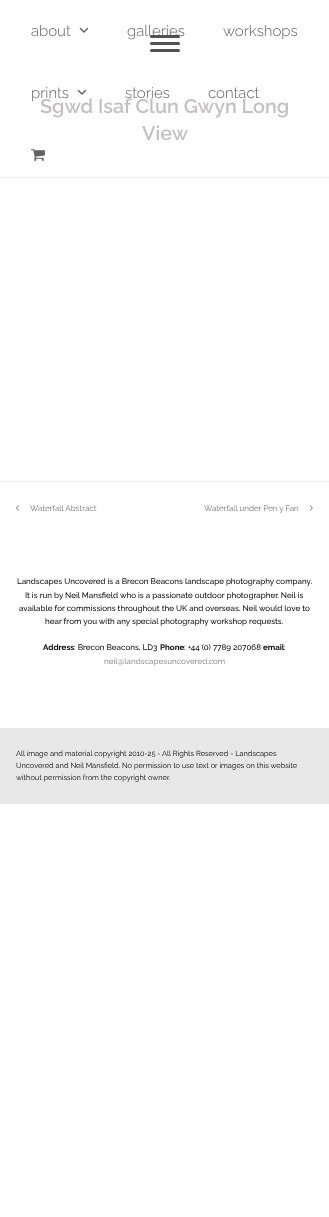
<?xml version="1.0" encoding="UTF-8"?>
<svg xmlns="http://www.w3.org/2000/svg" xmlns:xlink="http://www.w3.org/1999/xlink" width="329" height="1217">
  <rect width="100%" height="100%" fill="#ffffff" />
  <image x="79" y="27" width="10" height="6" xlink:href="image1.png" />
  <image x="77" y="89" width="10" height="6" xlink:href="image1.png" />
  <image x="31" y="149" width="14" height="12" xlink:href="image2.png" />
  <rect x="150" y="42" width="30" height="3" rx="1.5" fill="#515151" />
  <rect x="150" y="49" width="30" height="3" rx="1.5" fill="#515151" />
  <rect y="177" width="329" height="1" fill="#eeeeee" />
  <rect y="481" width="329" height="1" fill="#eeeeee" />
  <image x="16" y="505" width="3" height="6" xlink:href="image3.png" />
  <image x="309" y="505" width="4" height="6" xlink:href="image4.png" />
  <rect y="728" width="329" height="76" fill="#e8e8e8" />
  <text x="31" y="36" style="font-family: Raleway; font-size: 15px; font-weight: 300; fill: #616161">about</text>
  <text x="127" y="36" style="font-family: Raleway; font-size: 15px; font-weight: 300; fill: #616161">galleries</text>
  <text x="223" y="36" style="font-family: Raleway; font-size: 15px; font-weight: 300; fill: #616161">workshops</text>
  <text x="31" y="98" style="font-family: Raleway; font-size: 15px; font-weight: 300; fill: #616161">prints</text>
  <text x="125" y="98" style="font-family: Raleway; font-size: 15px; font-weight: 300; fill: #616161">stories</text>
  <text x="208" y="98" style="font-family: Raleway; font-size: 15px; font-weight: 300; fill: #616161">contact</text>
  <rect x="150" y="35" width="30" height="3" rx="1.5" fill="#515151" />
  <text x="40" y="113" style="font-family: Raleway; font-size: 19.75px; font-weight: 600; fill: #c4c0c0">Sgwd Isaf Clun Gwyn Long</text>
  <text x="142" y="140" style="font-family: Raleway; font-size: 19.75px; font-weight: 600; fill: #c4c0c0">View</text>
  <text x="30" y="511" style="font-family: Raleway; font-size: 8px; fill: #757575">Waterfall Abstract</text>
  <text x="204" y="511" style="font-family: Raleway; font-size: 8px; fill: #757575">Waterfall under Pen y Fan</text>
  <text x="17" y="584" style="font-family: Raleway; font-size: 8px; font-weight: 500; fill: #0a0a0a">Landscapes Uncovered is a Brecon Beacons landscape photography company.</text>
  <text x="25" y="598" style="font-family: Raleway; font-size: 8px; font-weight: 500; fill: #0a0a0a">It is run by Neil Mansfield who is a passionate outdoor photographer. Neil is</text>
  <text x="19" y="611" style="font-family: Raleway; font-size: 8px; font-weight: 500; fill: #0a0a0a">available for commissions throughout the UK and overseas. Neil would love to</text>
  <text x="45" y="624" style="font-family: Raleway; font-size: 8px; font-weight: 500; fill: #0a0a0a">hear from you with any special photography workshop requests.</text>
  <text x="43" y="650" style="font-family: Raleway; font-size: 8px; font-weight: bold; fill: #0a0a0a">Address</text>
  <text x="74" y="650" style="font-family: Raleway; font-size: 8px; font-weight: 500; fill: #0a0a0a">: Brecon Beacons, LD3</text>
  <text x="160" y="650" style="font-family: Raleway; font-size: 8px; font-weight: bold; fill: #0a0a0a">Phone</text>
  <text x="184" y="650" style="font-family: Raleway; font-size: 8px; font-weight: 500; fill: #0a0a0a">: +44 (0) 7789 207068</text>
  <text x="263" y="650" style="font-family: Raleway; font-size: 8px; font-weight: bold; fill: #0a0a0a">email</text>
  <text x="284" y="650" style="font-family: Raleway; font-size: 8px; font-weight: 500; fill: #0a0a0a">:</text>
  <text x="104" y="664" style="font-family: Raleway; font-size: 8px; font-weight: 500; fill: #939393">neil@landscapesuncovered.com</text>
  <text x="16" y="756" style="font-family: Raleway; font-size: 7.4px; fill: #000000">All image and material copyright 2010-25 - All Rights Reserved - Landscapes</text>
  <text x="16" y="768" style="font-family: Raleway; font-size: 7.4px; fill: #000000">Uncovered and Neil Mansfield. No permission to use text or images on this website</text>
  <text x="16" y="780" style="font-family: Raleway; font-size: 7.4px; fill: #000000">without permission from the copyright owner.</text>
</svg>
